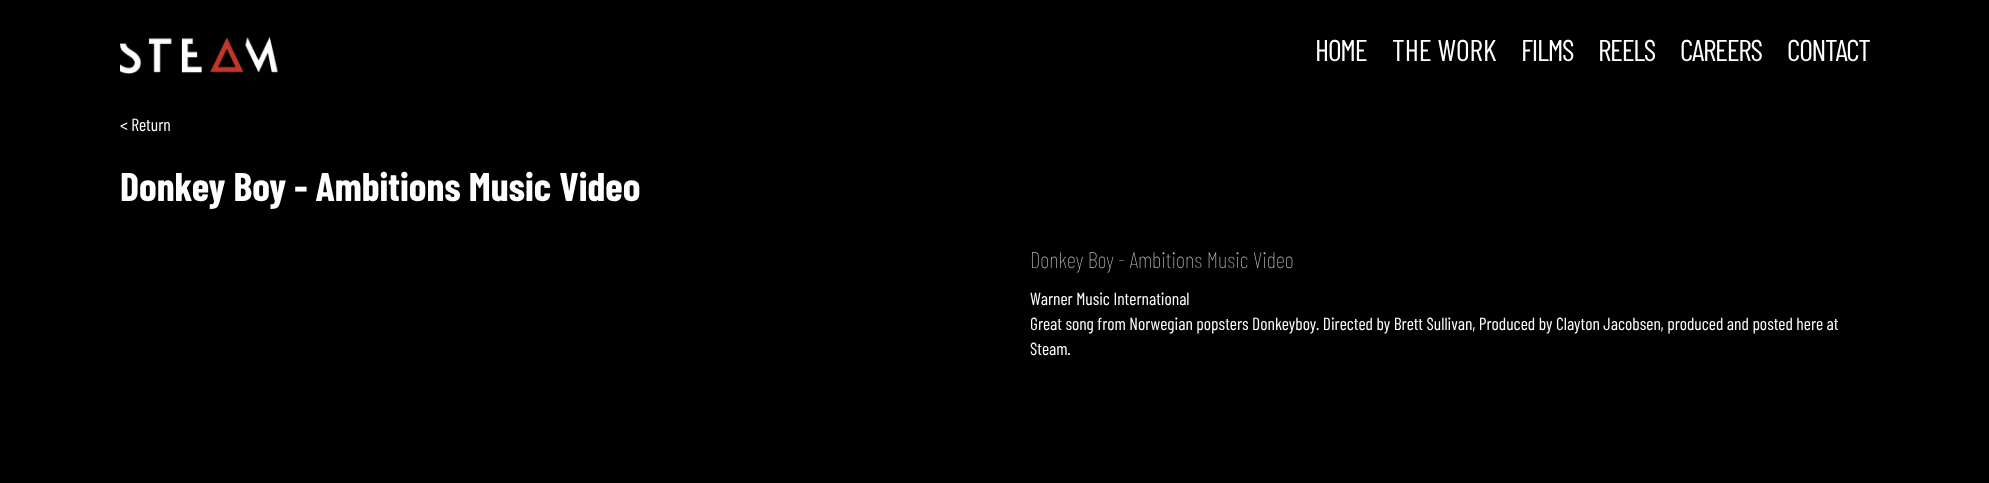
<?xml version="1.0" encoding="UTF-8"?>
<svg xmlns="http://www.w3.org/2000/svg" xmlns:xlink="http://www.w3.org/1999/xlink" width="1989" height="483">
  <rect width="100%" height="100%" fill="#000000" />
  <image x="120" y="37" width="158" height="37" xlink:href="image1.png" />
  <text x="1315" y="61" style="font-family: Barlow Condensed; font-size: 30px; letter-spacing: -1.25px; fill: #ffffff">HOME</text>
  <text x="1392" y="61" style="font-family: Barlow Condensed; font-size: 30px; fill: #ffffff">THE WORK</text>
  <text x="1521" y="61" style="font-family: Barlow Condensed; font-size: 30px; letter-spacing: -1.25px; fill: #ffffff">FILMS</text>
  <text x="1598" y="61" style="font-family: Barlow Condensed; font-size: 30px; letter-spacing: -1.25px; fill: #ffffff">REELS</text>
  <text x="1680" y="61" style="font-family: Barlow Condensed; font-size: 30px; letter-spacing: -1.25px; fill: #ffffff">CAREERS</text>
  <text x="1787" y="61" style="font-family: Barlow Condensed; font-size: 30px; letter-spacing: -1.25px; fill: #ffffff">CONTACT</text>
  <text x="120" y="131" style="font-family: Barlow Condensed; font-size: 17.5px; fill: #ffffff">&lt; Return</text>
  <text x="120" y="201" style="font-family: Barlow Condensed; font-size: 40px; font-weight: bold; fill: #ffffff">Donkey Boy - Ambitions Music Video</text>
  <text x="1030" y="268" style="font-family: Barlow Condensed; font-size: 22.5px; font-weight: 100; fill: #bbbbbb">Donkey Boy - Ambitions Music Video</text>
  <text x="1030" y="305" style="font-family: Barlow Condensed; font-size: 17.5px; fill: #ffffff">Warner Music International</text>
  <text x="1030" y="330" style="font-family: Barlow Condensed; font-size: 17.5px; fill: #ffffff">Great song from Norwegian popsters Donkeyboy. Directed by Brett Sullivan, Produced by Clayton Jacobsen, produced and posted here at</text>
  <text x="1030" y="355" style="font-family: Barlow Condensed; font-size: 17.5px; fill: #ffffff">Steam.</text>
</svg>
